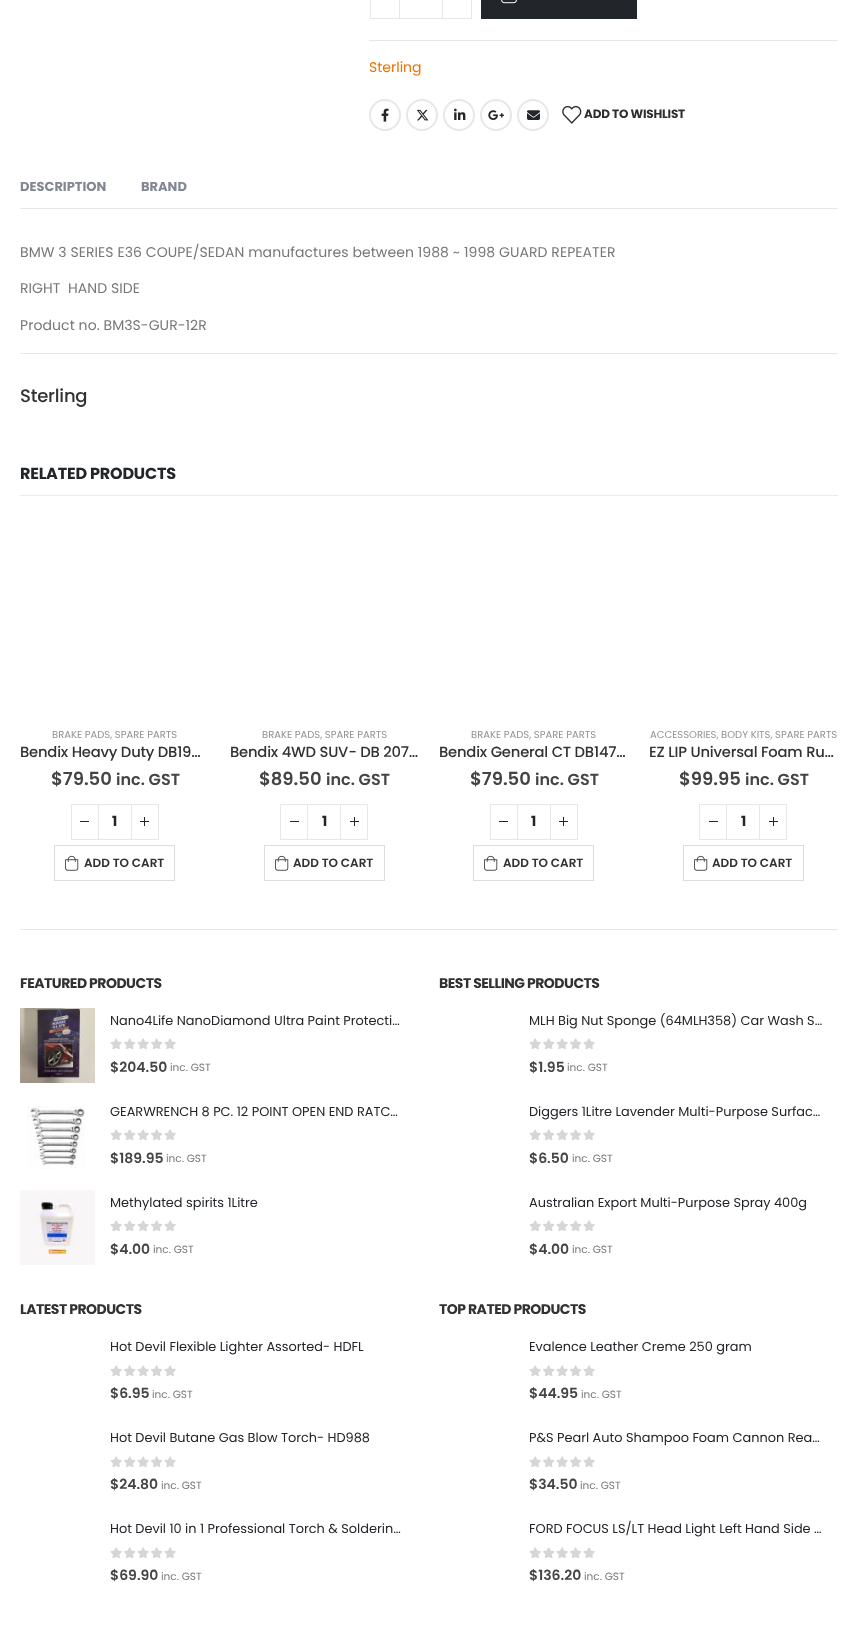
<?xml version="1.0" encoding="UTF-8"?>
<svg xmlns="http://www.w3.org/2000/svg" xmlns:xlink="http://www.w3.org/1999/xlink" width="858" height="1651">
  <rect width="100%" height="100%" fill="#ffffff" />
  <rect x="369" y="40" width="469" height="1" fill="#e7e7e7" />
  <rect x="399" y="18" width="44" height="1" fill="#e7e7e7" />
  <rect x="370.5" y="-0.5" width="29" height="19" fill="none" stroke="#e7e7e7" />
  <rect x="442.5" y="-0.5" width="29" height="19" fill="none" stroke="#e7e7e7" />
  <rect x="481" width="156" height="19" fill="#222529" />
  <image x="501" y="0" width="16" height="4" xlink:href="image1.png" />
  <circle cx="385" cy="115" r="15" fill="none" stroke="#e7e7e7" stroke-width="2" />
  <image x="381" y="108" width="8" height="14" xlink:href="image2.png" />
  <circle cx="422" cy="115" r="15" fill="none" stroke="#e7e7e7" stroke-width="2" />
  <image x="416" y="109" width="13" height="12" xlink:href="image3.png" />
  <circle cx="459" cy="115" r="15" fill="none" stroke="#e7e7e7" stroke-width="2" />
  <image x="454" y="108" width="12" height="12" xlink:href="image4.png" />
  <circle cx="496" cy="115" r="15" fill="none" stroke="#e7e7e7" stroke-width="2" />
  <image x="488" y="110" width="16" height="10" xlink:href="image5.png" />
  <circle cx="533" cy="115" r="15" fill="none" stroke="#e7e7e7" stroke-width="2" />
  <image x="527" y="110" width="13" height="10" xlink:href="image6.png" />
  <image x="562" y="105" width="20" height="19" xlink:href="image7.png" />
  <rect x="20" y="208" width="818" height="1" fill="#e7e7e7" />
  <rect x="20" y="353" width="818" height="1" fill="#e7e7e7" />
  <rect x="20" y="495" width="818" height="1" fill="#ebebeb" />
  <rect x="98.5" y="804.5" width="33" height="35" fill="none" stroke="#e7e7e7" />
  <rect x="71.5" y="804.5" width="27" height="35" fill="none" stroke="#e7e7e7" />
  <rect x="80" y="821" width="9" height="1" fill="#222529" />
  <rect x="131.5" y="804.5" width="27" height="35" fill="none" stroke="#e7e7e7" />
  <rect x="140" y="821" width="9" height="1" fill="#222529" />
  <rect x="144" y="817" width="1" height="9" fill="#222529" />
  <rect x="54.5" y="845.5" width="120" height="35" fill="none" stroke="#dddddd" />
  <image x="65" y="855" width="14" height="16" xlink:href="image8.png" />
  <rect x="307.5" y="804.5" width="33" height="35" fill="none" stroke="#e7e7e7" />
  <rect x="280.5" y="804.5" width="27" height="35" fill="none" stroke="#e7e7e7" />
  <rect x="290" y="821" width="9" height="1" fill="#222529" />
  <rect x="340.5" y="804.5" width="27" height="35" fill="none" stroke="#e7e7e7" />
  <rect x="350" y="821" width="9" height="1" fill="#222529" />
  <rect x="354" y="817" width="1" height="9" fill="#222529" />
  <rect x="264.5" y="845.5" width="120" height="35" fill="none" stroke="#dddddd" />
  <image x="275" y="855" width="14" height="16" xlink:href="image8.png" />
  <rect x="517.5" y="804.5" width="33" height="35" fill="none" stroke="#e7e7e7" />
  <rect x="490.5" y="804.5" width="27" height="35" fill="none" stroke="#e7e7e7" />
  <rect x="499" y="821" width="9" height="1" fill="#222529" />
  <rect x="550.5" y="804.5" width="27" height="35" fill="none" stroke="#e7e7e7" />
  <rect x="559" y="821" width="9" height="1" fill="#222529" />
  <rect x="563" y="817" width="1" height="9" fill="#222529" />
  <rect x="473.5" y="845.5" width="120" height="35" fill="none" stroke="#dddddd" />
  <image x="484" y="855" width="14" height="16" xlink:href="image8.png" />
  <rect x="726.5" y="804.5" width="33" height="35" fill="none" stroke="#e7e7e7" />
  <rect x="699.5" y="804.5" width="27" height="35" fill="none" stroke="#e7e7e7" />
  <rect x="709" y="821" width="9" height="1" fill="#222529" />
  <rect x="759.5" y="804.5" width="27" height="35" fill="none" stroke="#e7e7e7" />
  <rect x="769" y="821" width="9" height="1" fill="#222529" />
  <rect x="773" y="817" width="1" height="9" fill="#222529" />
  <rect x="683.5" y="845.5" width="120" height="35" fill="none" stroke="#dddddd" />
  <image x="694" y="855" width="14" height="16" xlink:href="image8.png" />
  <rect x="20" y="929" width="818" height="1" fill="#e7e7e7" />
  <image x="20" y="1008" width="75" height="75" xlink:href="image9.png" />
  <image x="110" y="1038" width="66" height="11" xlink:href="image10.png" />
  <image x="27" y="1106" width="58" height="63" xlink:href="image11.png" />
  <image x="110" y="1129" width="66" height="11" xlink:href="image10.png" />
  <image x="20" y="1190" width="75" height="75" xlink:href="image12.png" />
  <image x="110" y="1220" width="66" height="11" xlink:href="image10.png" />
  <image x="529" y="1038" width="66" height="11" xlink:href="image10.png" />
  <image x="529" y="1129" width="66" height="11" xlink:href="image10.png" />
  <image x="529" y="1220" width="66" height="11" xlink:href="image10.png" />
  <image x="110" y="1365" width="66" height="11" xlink:href="image10.png" />
  <image x="110" y="1456" width="66" height="11" xlink:href="image10.png" />
  <image x="110" y="1547" width="66" height="11" xlink:href="image10.png" />
  <image x="529" y="1365" width="66" height="11" xlink:href="image10.png" />
  <image x="529" y="1456" width="66" height="11" xlink:href="image10.png" />
  <image x="529" y="1547" width="66" height="11" xlink:href="image10.png" />
  <text x="369" y="72" style="font-family: Poppins; font-size: 14px; fill: #ec7200">Sterling</text>
  <text x="584" y="118" style="font-family: Poppins; font-size: 12px; font-weight: bold; letter-spacing: -0.2px; fill: #302e2a">ADD TO WISHLIST</text>
  <text x="20" y="191" style="font-family: Poppins; font-size: 13px; font-weight: bold; fill: #818692">DESCRIPTION</text>
  <text x="141" y="191" style="font-family: Poppins; font-size: 13px; font-weight: bold; fill: #818692">BRAND</text>
  <text x="20" y="257" style="font-family: Poppins; font-size: 14px; letter-spacing: 0.07px; fill: #777777">BMW 3 SERIES E36 COUPE/SEDAN manufactures between 1988 ~ 1998 GUARD REPEATER</text>
  <text x="20" y="293" style="font-family: Poppins; font-size: 14px; letter-spacing: 0.07px; fill: #777777" xml:space="preserve">RIGHT  HAND SIDE</text>
  <text x="20" y="330" style="font-family: Poppins; font-size: 14px; letter-spacing: 0.07px; fill: #777777">Product no. BM3S-GUR-12R</text>
  <text x="20" y="402" style="font-family: Poppins; font-size: 18px; font-weight: 500; letter-spacing: -0.2px; fill: #323232">Sterling</text>
  <text x="20" y="479" style="font-family: Poppins; font-size: 16px; font-weight: bold; letter-spacing: -0.2px; fill: #222529">RELATED PRODUCTS</text>
  <text x="52" y="738" style="font-family: Poppins; font-size: 10px; fill: #929292">BRAKE PADS, SPARE PARTS</text>
  <text x="20" y="757" style="font-family: Poppins; font-size: 14.75px; font-weight: 500; letter-spacing: -0.2px; fill: #323232">Bendix Heavy Duty DB19…</text>
  <text x="51" y="785" style="font-family: Poppins; font-size: 18px; font-weight: 600; fill: #444444">$79.50</text>
  <text x="116" y="785" style="font-family: Poppins; font-size: 16px; font-weight: 600; fill: #444444">inc. GST</text>
  <text x="112" y="826" style="font-family: Poppins; font-size: 14px; font-weight: bold; fill: #222529">1</text>
  <text x="84" y="867" style="font-family: Poppins; font-size: 12px; font-weight: 600; fill: #323232">ADD TO CART</text>
  <text x="262" y="738" style="font-family: Poppins; font-size: 10px; fill: #929292">BRAKE PADS, SPARE PARTS</text>
  <text x="230" y="757" style="font-family: Poppins; font-size: 14.75px; font-weight: 500; letter-spacing: -0.2px; fill: #323232">Bendix 4WD SUV- DB 207…</text>
  <text x="259" y="785" style="font-family: Poppins; font-size: 18px; font-weight: 600; fill: #444444">$89.50</text>
  <text x="326" y="785" style="font-family: Poppins; font-size: 16px; font-weight: 600; fill: #444444">inc. GST</text>
  <text x="322" y="826" style="font-family: Poppins; font-size: 14px; font-weight: bold; fill: #222529">1</text>
  <text x="293" y="867" style="font-family: Poppins; font-size: 12px; font-weight: 600; fill: #323232">ADD TO CART</text>
  <text x="471" y="738" style="font-family: Poppins; font-size: 10px; fill: #929292">BRAKE PADS, SPARE PARTS</text>
  <text x="439" y="757" style="font-family: Poppins; font-size: 14.75px; font-weight: 500; letter-spacing: -0.2px; fill: #323232">Bendix General CT DB147…</text>
  <text x="470" y="785" style="font-family: Poppins; font-size: 18px; font-weight: 600; fill: #444444">$79.50</text>
  <text x="535" y="785" style="font-family: Poppins; font-size: 16px; font-weight: 600; fill: #444444">inc. GST</text>
  <text x="531" y="826" style="font-family: Poppins; font-size: 14px; font-weight: bold; fill: #222529">1</text>
  <text x="503" y="867" style="font-family: Poppins; font-size: 12px; font-weight: 600; fill: #323232">ADD TO CART</text>
  <text x="650" y="738" style="font-family: Poppins; font-size: 10px; fill: #929292">ACCESSORIES, BODY KITS, SPARE PARTS</text>
  <text x="649" y="757" style="font-family: Poppins; font-size: 14.75px; font-weight: 500; letter-spacing: -0.2px; fill: #323232">EZ LIP Universal Foam Ru…</text>
  <text x="679" y="785" style="font-family: Poppins; font-size: 18px; font-weight: 600; fill: #444444">$99.95</text>
  <text x="745" y="785" style="font-family: Poppins; font-size: 16px; font-weight: 600; fill: #444444">inc. GST</text>
  <text x="741" y="826" style="font-family: Poppins; font-size: 14px; font-weight: bold; fill: #222529">1</text>
  <text x="712" y="867" style="font-family: Poppins; font-size: 12px; font-weight: 600; fill: #323232">ADD TO CART</text>
  <text x="20" y="988" style="font-family: Poppins; font-size: 14px; font-weight: bold; letter-spacing: -0.5px; fill: #323232">FEATURED PRODUCTS</text>
  <text x="110" y="1025" style="font-family: Poppins; font-size: 12.9px; fill: #222529">Nano4Life NanoDiamond Ultra Paint Protecti…</text>
  <text x="110" y="1072" style="font-family: Poppins; font-size: 14px; font-weight: 600; fill: #444444">$204.50</text>
  <text x="170" y="1071" style="font-family: Poppins; font-size: 10.5px; fill: #777777">inc. GST</text>
  <text x="110" y="1116" style="font-family: Poppins; font-size: 12.9px; fill: #222529">GEARWRENCH 8 PC. 12 POINT OPEN END RATC…</text>
  <text x="110" y="1163" style="font-family: Poppins; font-size: 14px; font-weight: 600; fill: #444444">$189.95</text>
  <text x="166" y="1162" style="font-family: Poppins; font-size: 10.5px; fill: #777777">inc. GST</text>
  <text x="110" y="1207" style="font-family: Poppins; font-size: 12.9px; fill: #222529">Methylated spirits 1Litre</text>
  <text x="110" y="1254" style="font-family: Poppins; font-size: 14px; font-weight: 600; fill: #444444">$4.00</text>
  <text x="153" y="1253" style="font-family: Poppins; font-size: 10.5px; fill: #777777">inc. GST</text>
  <text x="439" y="988" style="font-family: Poppins; font-size: 14px; font-weight: bold; letter-spacing: -0.5px; fill: #323232">BEST SELLING PRODUCTS</text>
  <text x="529" y="1025" style="font-family: Poppins; font-size: 12.9px; fill: #222529">MLH Big Nut Sponge (64MLH358) Car Wash S…</text>
  <text x="529" y="1072" style="font-family: Poppins; font-size: 14px; font-weight: 600; fill: #444444">$1.95</text>
  <text x="567" y="1071" style="font-family: Poppins; font-size: 10.5px; fill: #777777">inc. GST</text>
  <text x="529" y="1116" style="font-family: Poppins; font-size: 12.9px; fill: #222529">Diggers 1Litre Lavender Multi-Purpose Surfac…</text>
  <text x="529" y="1163" style="font-family: Poppins; font-size: 14px; font-weight: 600; fill: #444444">$6.50</text>
  <text x="572" y="1162" style="font-family: Poppins; font-size: 10.5px; fill: #777777">inc. GST</text>
  <text x="529" y="1207" style="font-family: Poppins; font-size: 12.9px; fill: #222529">Australian Export Multi-Purpose Spray 400g</text>
  <text x="529" y="1254" style="font-family: Poppins; font-size: 14px; font-weight: 600; fill: #444444">$4.00</text>
  <text x="572" y="1253" style="font-family: Poppins; font-size: 10.5px; fill: #777777">inc. GST</text>
  <text x="20" y="1314" style="font-family: Poppins; font-size: 14px; font-weight: bold; letter-spacing: -0.5px; fill: #323232">LATEST PRODUCTS</text>
  <text x="110" y="1351" style="font-family: Poppins; font-size: 12.9px; fill: #222529">Hot Devil Flexible Lighter Assorted- HDFL</text>
  <text x="110" y="1398" style="font-family: Poppins; font-size: 14px; font-weight: 600; fill: #444444">$6.95</text>
  <text x="152" y="1398" style="font-family: Poppins; font-size: 10.5px; fill: #777777">inc. GST</text>
  <text x="110" y="1442" style="font-family: Poppins; font-size: 12.9px; fill: #222529">Hot Devil Butane Gas Blow Torch- HD988</text>
  <text x="110" y="1489" style="font-family: Poppins; font-size: 14px; font-weight: 600; fill: #444444">$24.80</text>
  <text x="161" y="1489" style="font-family: Poppins; font-size: 10.5px; fill: #777777">inc. GST</text>
  <text x="110" y="1533" style="font-family: Poppins; font-size: 12.9px; fill: #222529">Hot Devil 10 in 1 Professional Torch &amp; Solderin…</text>
  <text x="110" y="1580" style="font-family: Poppins; font-size: 14px; font-weight: 600; fill: #444444">$69.90</text>
  <text x="161" y="1580" style="font-family: Poppins; font-size: 10.5px; fill: #777777">inc. GST</text>
  <text x="439" y="1314" style="font-family: Poppins; font-size: 14px; font-weight: bold; letter-spacing: -0.5px; fill: #323232">TOP RATED PRODUCTS</text>
  <text x="529" y="1351" style="font-family: Poppins; font-size: 12.9px; fill: #222529">Evalence Leather Creme 250 gram</text>
  <text x="529" y="1398" style="font-family: Poppins; font-size: 14px; font-weight: 600; fill: #444444">$44.95</text>
  <text x="581" y="1398" style="font-family: Poppins; font-size: 10.5px; fill: #777777">inc. GST</text>
  <text x="529" y="1442" style="font-family: Poppins; font-size: 12.9px; fill: #222529">P&amp;S Pearl Auto Shampoo Foam Cannon Rea…</text>
  <text x="529" y="1489" style="font-family: Poppins; font-size: 14px; font-weight: 600; fill: #444444">$34.50</text>
  <text x="580" y="1489" style="font-family: Poppins; font-size: 10.5px; fill: #777777">inc. GST</text>
  <text x="529" y="1533" style="font-family: Poppins; font-size: 12.9px; fill: #222529">FORD FOCUS LS/LT Head Light Left Hand Side …</text>
  <text x="529" y="1580" style="font-family: Poppins; font-size: 14px; font-weight: 600; fill: #444444">$136.20</text>
  <text x="584" y="1580" style="font-family: Poppins; font-size: 10.5px; fill: #777777">inc. GST</text>
</svg>
